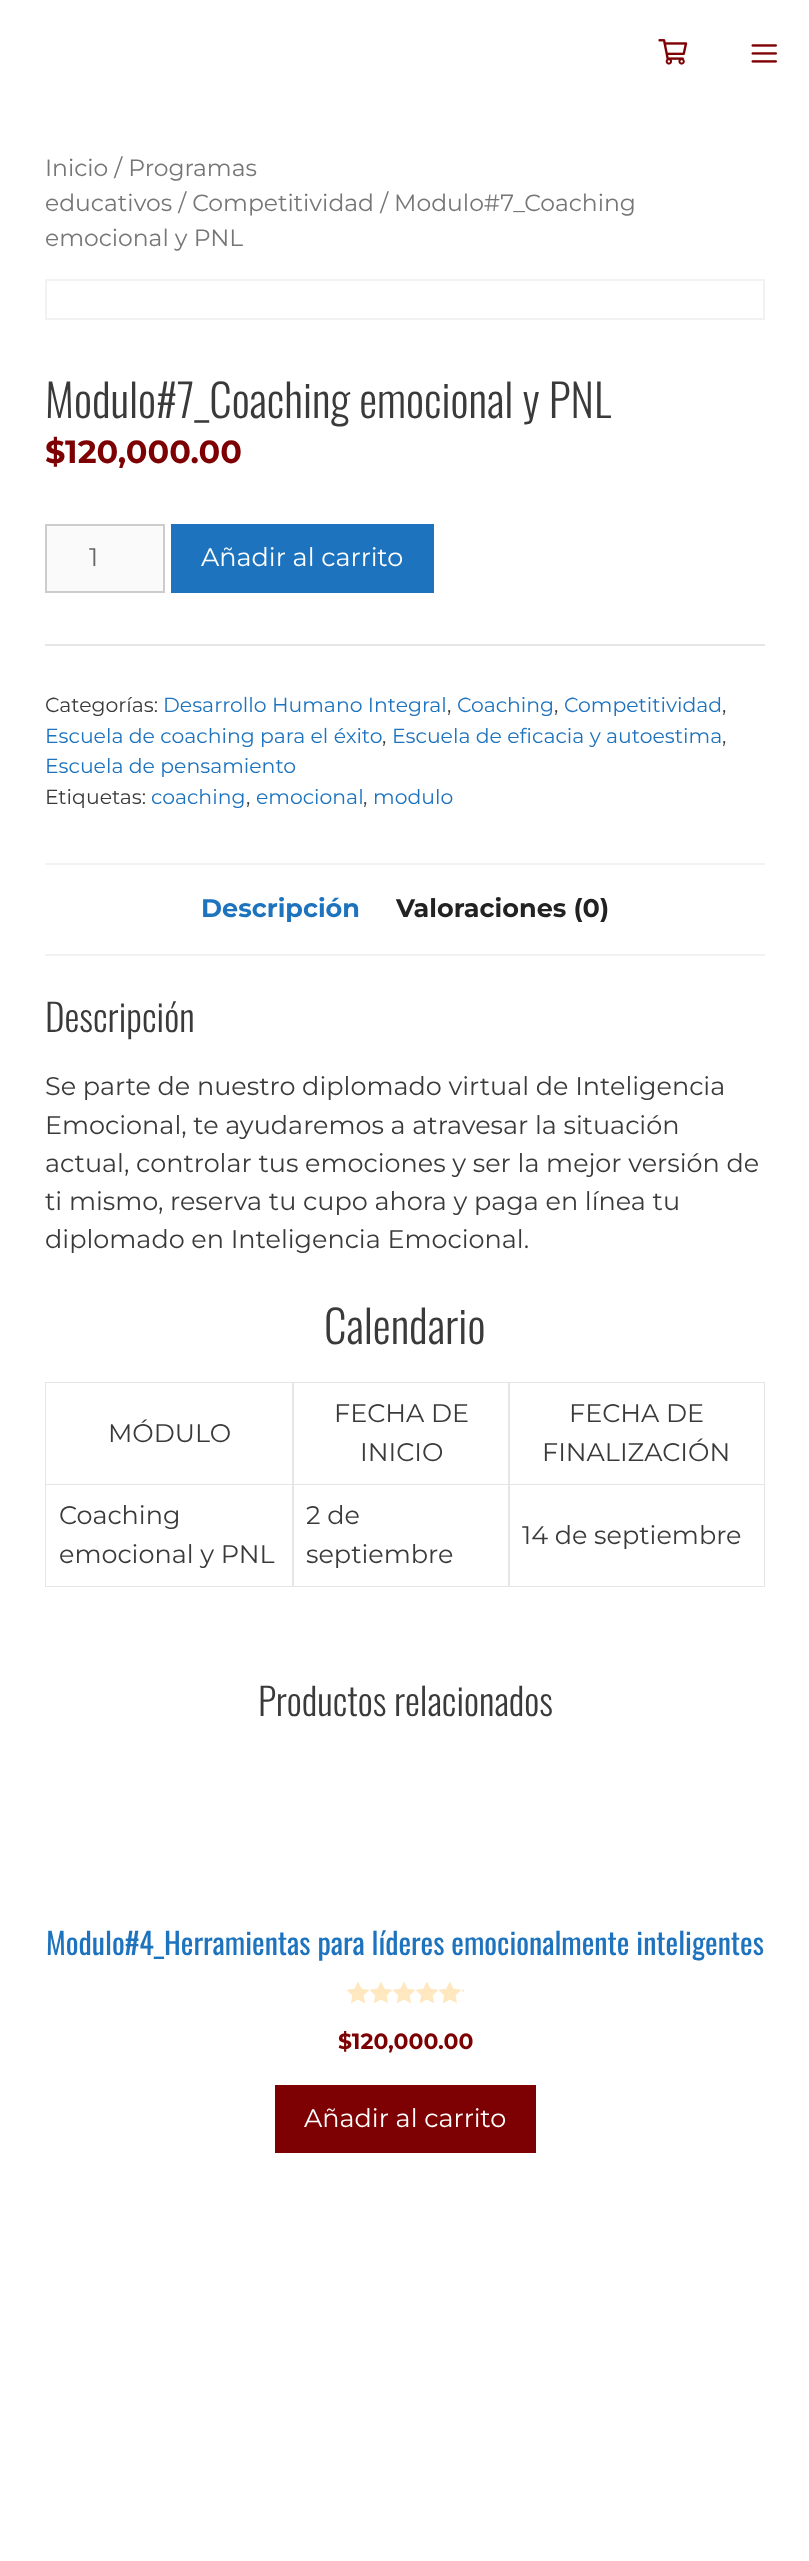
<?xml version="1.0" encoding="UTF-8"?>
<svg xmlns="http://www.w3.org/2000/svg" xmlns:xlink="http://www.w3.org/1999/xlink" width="809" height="2561">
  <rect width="100%" height="100%" fill="#ffffff" />
  <image x="658" y="39" width="30" height="26" xlink:href="image1.png" />
  <image x="751" y="44" width="26" height="19" xlink:href="image2.png" />
  <rect x="46" y="280" width="718" height="39" fill="none" stroke="#f2f2f2" stroke-width="2" />
  <rect x="46" y="525" width="118" height="67" fill="#fafafa" stroke="#cccccc" stroke-width="2" />
  <rect x="171" y="524" width="263" height="69" fill="#1e73be" />
  <rect x="45" y="644" width="720" height="2" fill="#e6e6e6" />
  <rect x="45" y="863" width="720" height="2" fill="#f2f2f2" />
  <rect x="45" y="954" width="720" height="2" fill="#f2f2f2" />
  <path d="M 45 1382 h 720 v 1 h -719 z" fill="#e6e6e6" />
  <path d="M 45 1587 v -205 l 1 1 v 204 z" fill="#000000" fill-opacity="0.1" />
  <path d="M 294 1383 v 102 l -2 -1 v -101 z" fill="#e6e6e6" />
  <path d="M 294 1485 h -248 v -1 h 246 z" fill="#000000" fill-opacity="0.1" />
  <path d="M 510 1383 v 102 l -2 -1 v -101 z" fill="#e6e6e6" />
  <path d="M 510 1485 h -216 v -1 h 214 z" fill="#000000" fill-opacity="0.1" />
  <path d="M 765 1383 v 102 l -1 -1 v -101 z" fill="#e6e6e6" />
  <path d="M 765 1485 h -255 v -1 h 254 z" fill="#000000" fill-opacity="0.1" />
  <path d="M 294 1485 v 102 l -2 -1 v -101 z" fill="#e6e6e6" />
  <path d="M 294 1587 h -248 v -1 h 246 z" fill="#000000" fill-opacity="0.1" />
  <path d="M 510 1485 v 102 l -2 -1 v -101 z" fill="#e6e6e6" />
  <path d="M 510 1587 h -216 v -1 h 214 z" fill="#000000" fill-opacity="0.1" />
  <path d="M 765 1485 v 102 l -1 -1 v -101 z" fill="#e6e6e6" />
  <path d="M 765 1587 h -255 v -1 h 254 z" fill="#000000" fill-opacity="0.1" />
  <image x="347" y="1982" width="117" height="22" xlink:href="image3.png" />
  <rect x="275" y="2085" width="261" height="68" fill="#7d0003" />
  <text x="45" y="176" style="font-family: Montserrat; font-size: 23.45px; fill: #767676">Inicio / Programas</text>
  <text x="45" y="211" style="font-family: Montserrat; font-size: 23.45px; fill: #767676">educativos / Competitividad / Modulo#7_Coaching</text>
  <text x="45" y="246" style="font-family: Montserrat; font-size: 23.45px; fill: #767676">emocional y PNL</text>
  <text x="45" y="418" style="font-family: Oswald; font-size: 45px; font-weight: 300; fill: #3a3a3a">Modulo#7_Coaching emocional y PNL</text>
  <text x="45" y="463" style="font-family: Montserrat; font-size: 32px; font-weight: bold; fill: #7d0003">$120,000.00</text>
  <text x="89" y="566" style="font-family: Montserrat; font-size: 25.5px; fill: #666666">1</text>
  <text x="201" y="566" style="font-family: Montserrat; font-size: 25.5px; fill: #ffffff">Añadir al carrito</text>
  <text x="45" y="712" style="font-family: Montserrat; font-size: 20.4px; fill: #3a3a3a">Categorías:</text>
  <text x="163" y="712" style="font-family: Montserrat; font-size: 20.4px; fill: #1e73be">Desarrollo Humano Integral</text>
  <text x="447" y="712" style="font-family: Montserrat; font-size: 20.4px; fill: #3a3a3a">,</text>
  <text x="457" y="712" style="font-family: Montserrat; font-size: 20.4px; fill: #1e73be">Coaching</text>
  <text x="554" y="712" style="font-family: Montserrat; font-size: 20.4px; fill: #3a3a3a">,</text>
  <text x="564" y="712" style="font-family: Montserrat; font-size: 20.4px; fill: #1e73be">Competitividad</text>
  <text x="722" y="712" style="font-family: Montserrat; font-size: 20.4px; fill: #3a3a3a">,</text>
  <text x="45" y="743" style="font-family: Montserrat; font-size: 20.4px; fill: #1e73be">Escuela de coaching para el éxito</text>
  <text x="382" y="743" style="font-family: Montserrat; font-size: 20.4px; fill: #3a3a3a">,</text>
  <text x="392" y="743" style="font-family: Montserrat; font-size: 20.4px; fill: #1e73be">Escuela de eficacia y autoestima</text>
  <text x="722" y="743" style="font-family: Montserrat; font-size: 20.4px; fill: #3a3a3a">,</text>
  <text x="45" y="773" style="font-family: Montserrat; font-size: 20.4px; fill: #1e73be">Escuela de pensamiento</text>
  <text x="45" y="804" style="font-family: Montserrat; font-size: 20.4px; fill: #3a3a3a">Etiquetas:</text>
  <text x="151" y="804" style="font-family: Montserrat; font-size: 20.4px; fill: #1e73be">coaching</text>
  <text x="246" y="804" style="font-family: Montserrat; font-size: 20.4px; fill: #3a3a3a">,</text>
  <text x="256" y="804" style="font-family: Montserrat; font-size: 20.4px; fill: #1e73be">emocional</text>
  <text x="363" y="804" style="font-family: Montserrat; font-size: 20.4px; fill: #3a3a3a">,</text>
  <text x="373" y="804" style="font-family: Montserrat; font-size: 20.4px; fill: #1e73be">modulo</text>
  <text x="201" y="917" style="font-family: Montserrat; font-size: 25.5px; font-weight: bold; fill: #1e73be">Descripción</text>
  <text x="396" y="917" style="font-family: Montserrat; font-size: 25.5px; font-weight: bold; fill: #222222">Valoraciones (0)</text>
  <text x="45" y="1032" style="font-family: Oswald; font-size: 37.5px; font-weight: 300; fill: #3a3a3a">Descripción</text>
  <text x="45" y="1095" style="font-family: Montserrat; font-size: 25.5px; fill: #3a3a3a">Se parte de nuestro diplomado virtual de Inteligencia</text>
  <text x="45" y="1134" style="font-family: Montserrat; font-size: 25.5px; fill: #3a3a3a">Emocional, te ayudaremos a atravesar la situación</text>
  <text x="45" y="1172" style="font-family: Montserrat; font-size: 25.5px; fill: #3a3a3a">actual, controlar tus emociones y ser la mejor versión de</text>
  <text x="45" y="1210" style="font-family: Montserrat; font-size: 25.5px; fill: #3a3a3a">ti mismo, reserva tu cupo ahora y paga en línea tu</text>
  <text x="45" y="1248" style="font-family: Montserrat; font-size: 25.5px; fill: #3a3a3a">diplomado en Inteligencia Emocional.</text>
  <text x="324" y="1344" style="font-family: Oswald; font-size: 45px; font-weight: 300; fill: #3a3a3a">Calendario</text>
  <text x="108" y="1442" style="font-family: Montserrat; font-size: 25.5px; fill: #3a3a3a">MÓDULO</text>
  <text x="334" y="1422" style="font-family: Montserrat; font-size: 25.5px; fill: #3a3a3a">FECHA DE</text>
  <text x="360" y="1461" style="font-family: Montserrat; font-size: 25.5px; fill: #3a3a3a">INICIO</text>
  <text x="569" y="1422" style="font-family: Montserrat; font-size: 25.5px; fill: #3a3a3a">FECHA DE</text>
  <text x="542" y="1461" style="font-family: Montserrat; font-size: 25.5px; fill: #3a3a3a">FINALIZACIÓN</text>
  <text x="59" y="1524" style="font-family: Montserrat; font-size: 25.5px; fill: #3a3a3a">Coaching</text>
  <text x="59" y="1563" style="font-family: Montserrat; font-size: 25.5px; fill: #3a3a3a">emocional y PNL</text>
  <text x="306" y="1524" style="font-family: Montserrat; font-size: 25.5px; fill: #3a3a3a">2 de</text>
  <text x="306" y="1563" style="font-family: Montserrat; font-size: 25.5px; fill: #3a3a3a">septiembre</text>
  <text x="522" y="1544" style="font-family: Montserrat; font-size: 25.5px; fill: #3a3a3a">14 de septiembre</text>
  <text x="258" y="1716" style="font-family: Oswald; font-size: 37.5px; font-weight: 300; fill: #3a3a3a">Productos relacionados</text>
  <text x="46" y="1955" style="font-family: Oswald; font-size: 30px; fill: #1e73be">Modulo#4_Herramientas para líderes emocionalmente inteligentes</text>
  <text x="338" y="2049" style="font-family: Montserrat; font-size: 22px; font-weight: bold; fill: #7d0003">$120,000.00</text>
  <text x="304" y="2127" style="font-family: Montserrat; font-size: 25.5px; fill: #ffffff">Añadir al carrito</text>
</svg>
